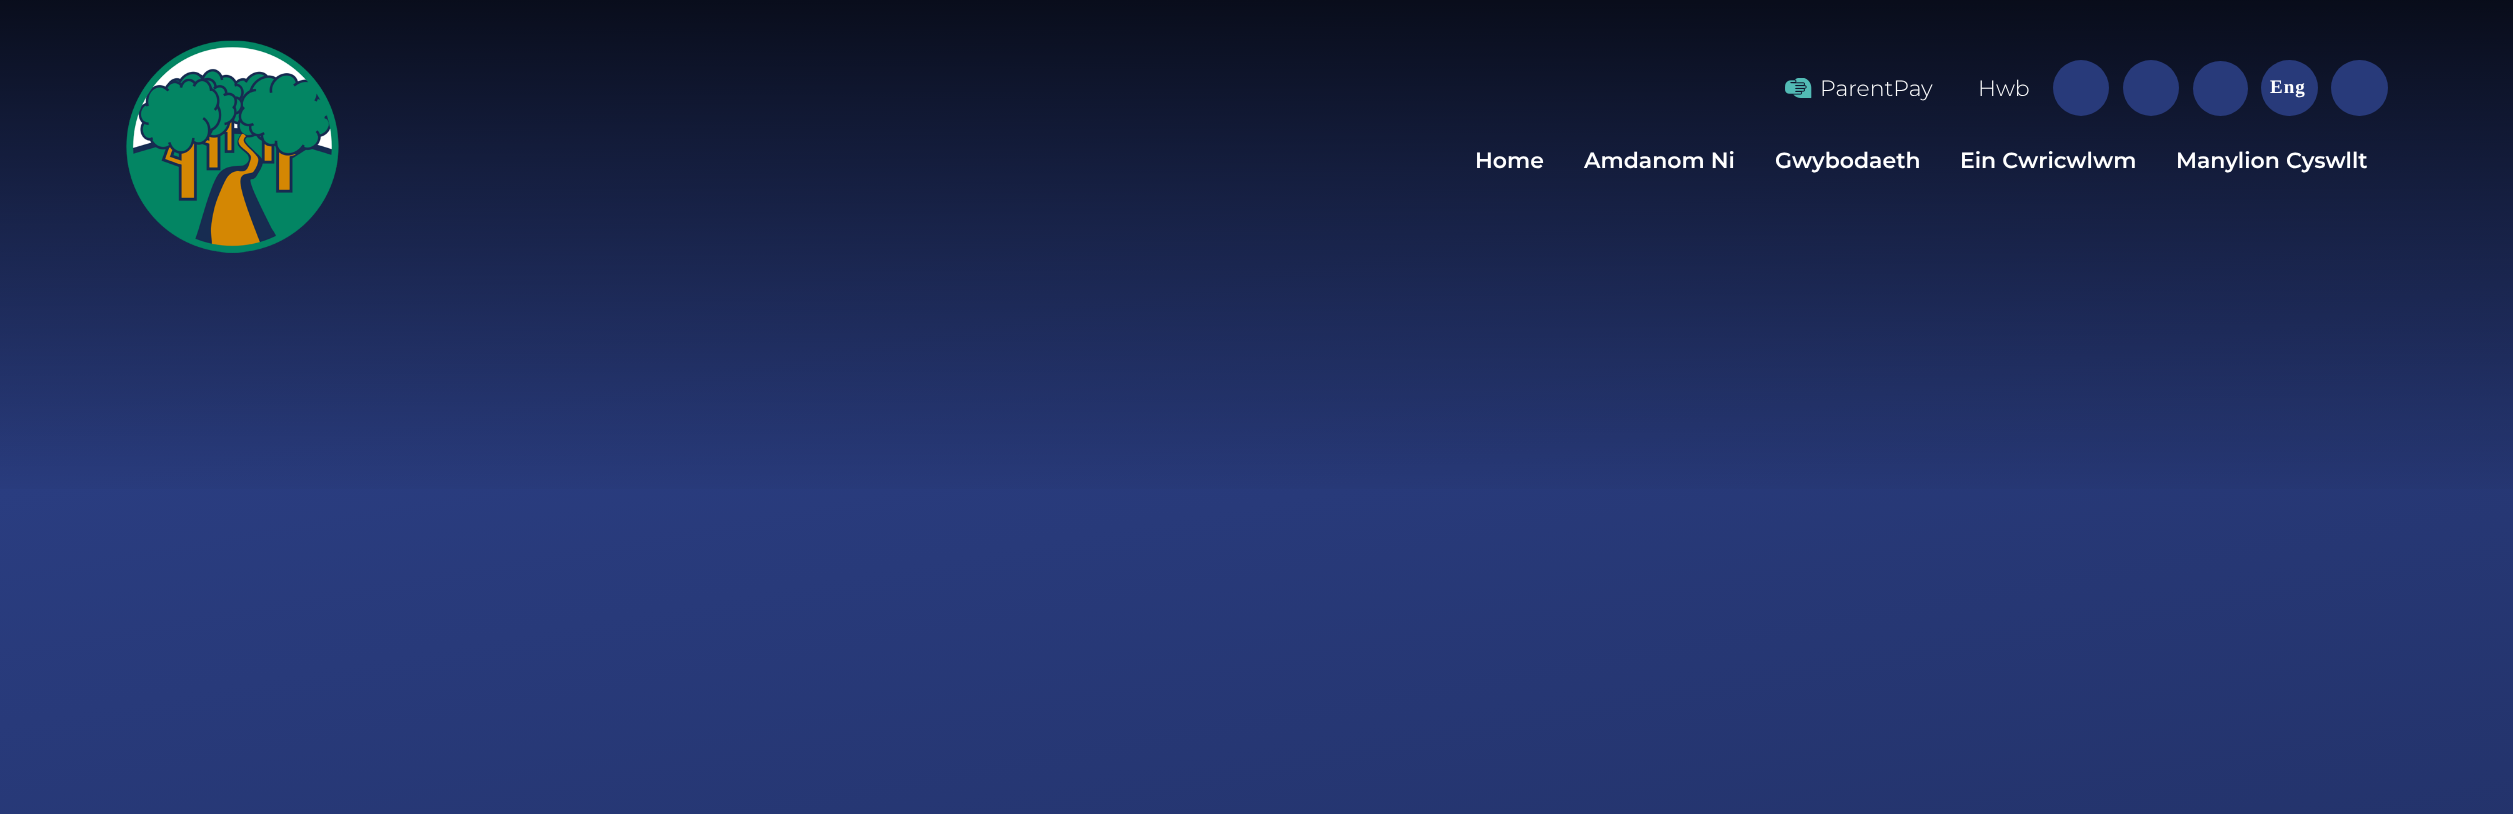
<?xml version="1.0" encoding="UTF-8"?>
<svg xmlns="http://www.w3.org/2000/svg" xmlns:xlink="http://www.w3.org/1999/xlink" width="2513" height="814">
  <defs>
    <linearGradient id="g1" gradientUnits="userSpaceOnUse" x1="1133" y1="-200" x2="1381" y2="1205"><stop offset="0" stop-color="#2e438d" /><stop offset="1" stop-color="#223167" /></linearGradient>
    <linearGradient id="g2" gradientUnits="userSpaceOnUse" x1="1257" y1="0" x2="1257" y2="503"><stop offset="0" stop-color="#000000" stop-opacity="0.8" /><stop offset="1" stop-color="#000000" stop-opacity="0" /></linearGradient>
  </defs>
  <rect width="100%" height="100%" fill="#ffffff" />
  <rect width="2513" height="814" fill="url(#g1)" />
  <rect width="2513" height="489" fill="url(#g2)" />
  <image x="126" y="40" width="213" height="213" xlink:href="image1.png" />
  <image x="1785" y="78" width="27" height="21" xlink:href="image2.png" />
  <circle cx="2081" cy="88" r="28" fill="#283a7a" />
  <circle cx="2151" cy="88" r="28" fill="#283a7a" />
  <circle cx="2220.5" cy="88.5" r="27.5" fill="#283a7a" />
  <rect x="2261" y="60" width="57" height="56" rx="28" fill="#283a7a" />
  <rect x="2331" y="60" width="57" height="56" rx="28" fill="#283a7a" />
  <text x="1820" y="96" style="font-family: Montserrat; font-size: 22px; font-weight: 300; fill: #ffffff">ParentPay</text>
  <text x="1978" y="96" style="font-family: Montserrat; font-size: 22px; font-weight: 300; fill: #ffffff">Hwb</text>
  <text x="2270" y="93" style="font-family: Liberation Serif; font-size: 19px; font-weight: bold; letter-spacing: 1px; fill: #ffffff">Eng</text>
  <text x="1475" y="168" style="font-family: Montserrat; font-size: 22px; font-weight: 600; fill: #ffffff">Home</text>
  <text x="1584" y="168" style="font-family: Montserrat; font-size: 22px; font-weight: 600; fill: #ffffff">Amdanom Ni</text>
  <text x="1775" y="168" style="font-family: Montserrat; font-size: 22px; font-weight: 600; fill: #ffffff">Gwybodaeth</text>
  <text x="1960" y="168" style="font-family: Montserrat; font-size: 22px; font-weight: 600; fill: #ffffff">Ein Cwricwlwm</text>
  <text x="2176" y="168" style="font-family: Montserrat; font-size: 22px; font-weight: 600; fill: #ffffff">Manylion Cyswllt</text>
</svg>
